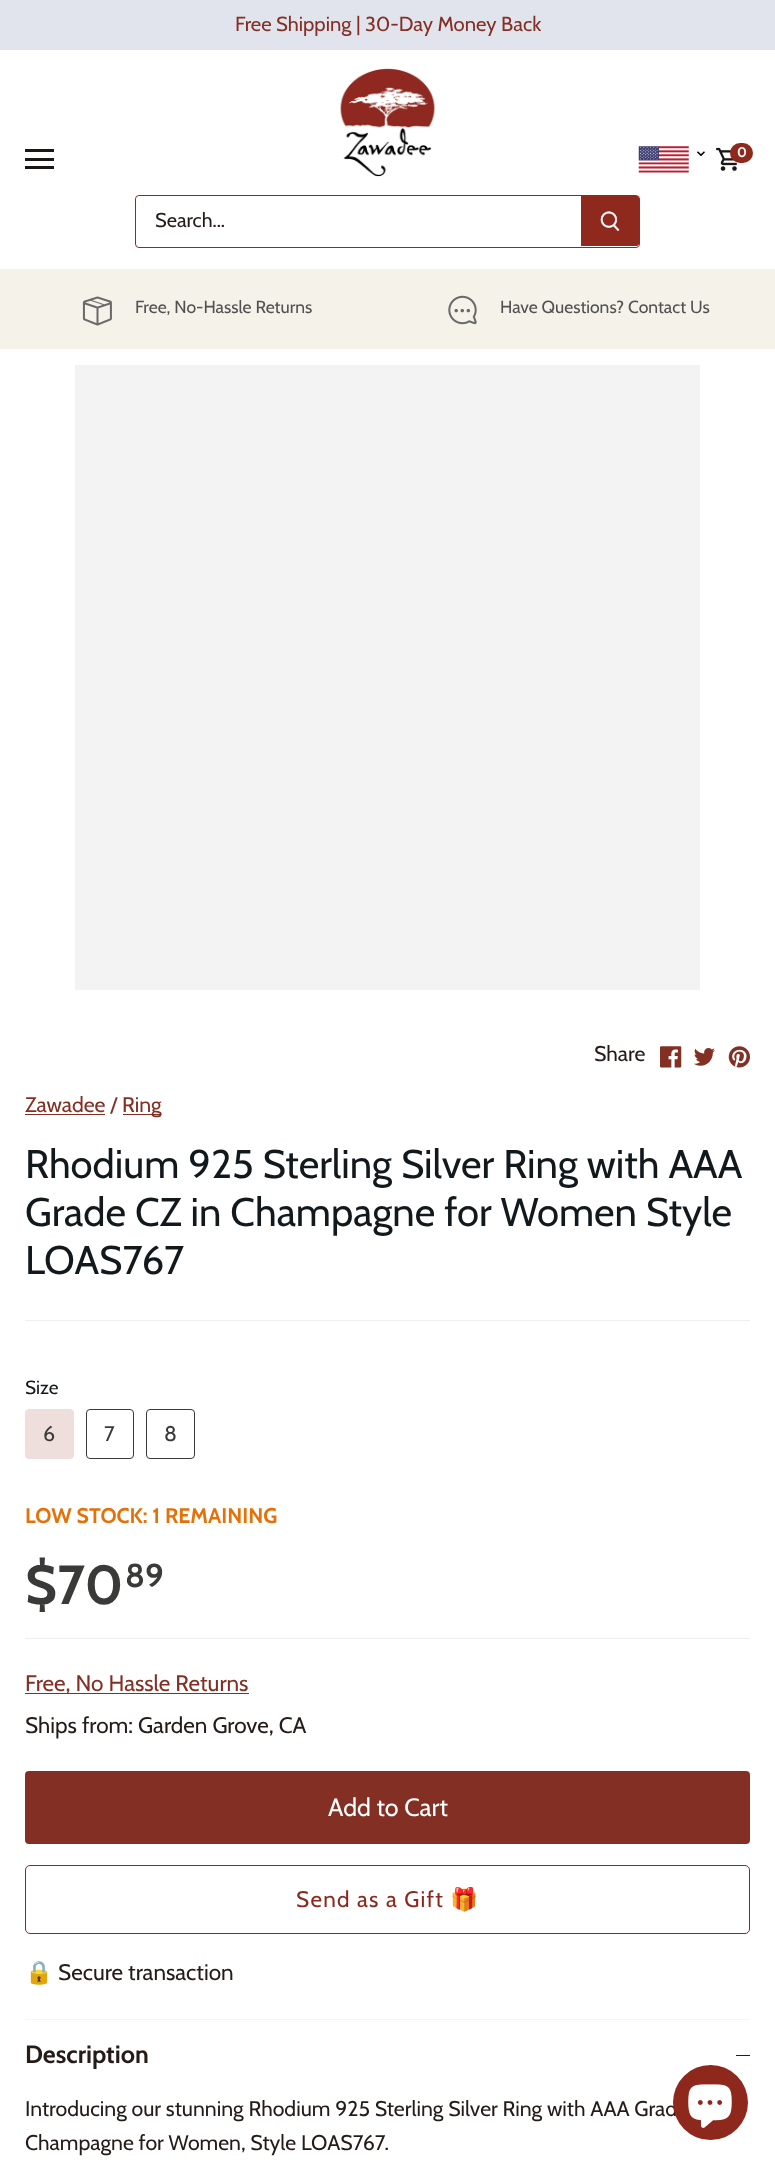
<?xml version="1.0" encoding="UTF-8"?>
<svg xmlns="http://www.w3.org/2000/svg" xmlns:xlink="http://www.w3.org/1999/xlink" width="775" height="2166">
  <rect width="100%" height="100%" fill="#ffffff" />
  <rect width="775" height="50" fill="#e2e4ed" />
  <rect x="25" y="149" width="29" height="3" fill="#191817" />
  <rect x="25" y="158" width="29" height="3" fill="#191817" />
  <rect x="25" y="166" width="29" height="3" fill="#191817" />
  <image x="638" y="146" width="51" height="27" xlink:href="image1.png" />
  <image x="716" y="147" width="21" height="24" xlink:href="image2.png" />
  <rect x="730" y="143" width="23" height="20" rx="10" fill="#8f291d" />
  <image x="340" y="68" width="95" height="109" xlink:href="image3.png" />
  <rect x="135.5" y="195.5" width="504" height="52" rx="3.5" fill="none" stroke="#8f291d" />
  <path d="M 140 196 h 443 v 50 h -443 c -2 0 -4 -2 -4 -4 v -42 c 0 -2 2 -4 4 -4 z" fill="#ffffff" />
  <path d="M 581 196 h 55.5 c 1.5 0 2.5 1 2.5 2.5 v 45 c 0 1.5 -1 2.5 -2.5 2.5 h -55.5 z" fill="#8f291d" />
  <image x="600" y="211" width="20" height="20" xlink:href="image4.png" />
  <rect y="269" width="775" height="80" fill="#f4f2e9" />
  <image x="82" y="296" width="30" height="30" xlink:href="image5.png" />
  <image x="448" y="295" width="29" height="30" xlink:href="image6.png" />
  <rect x="75" y="365" width="625" height="625" fill="#f3f3f3" />
  <image x="660" y="1046" width="22" height="22" xlink:href="image7.png" />
  <image x="694" y="1048" width="21" height="18" xlink:href="image8.png" />
  <image x="728" y="1046" width="22" height="22" xlink:href="image9.png" />
  <rect x="25" y="1114" width="80" height="1" fill="#842f24" />
  <rect x="123" y="1114" width="38" height="1" fill="#842f24" />
  <rect x="25" y="1320" width="725" height="1" fill="#eeeeee" />
  <rect x="25.5" y="1409.5" width="48" height="49" rx="3.5" fill="#eedfdd" stroke="#eededd" />
  <rect x="86.5" y="1409.5" width="47" height="49" rx="3.5" fill="none" stroke="#3a3a39" />
  <rect x="146.5" y="1409.5" width="48" height="49" rx="3.5" fill="none" stroke="#3a3a39" />
  <rect x="25" y="1638" width="725" height="1" fill="#eeeeee" />
  <rect x="25" y="1693" width="224" height="1" fill="#842f24" />
  <rect x="26.5" y="1772.5" width="722" height="70" rx="2.5" fill="#842f24" stroke="#842f24" stroke-width="3" />
  <rect x="25.5" y="1865.5" width="724" height="68" rx="4.5" fill="none" stroke="#8e281d" />
  <rect x="25" y="2019" width="725" height="1" fill="#f5f5f5" />
  <rect x="736" y="2055" width="14" height="1" fill="#251c19" />
  <text x="235" y="31" style="font-family: Cabin; font-size: 20.25px; fill: #842f24">Free Shipping | 30-Day Money Back</text>
  <text x="693" y="156" style="font-family: DejaVu Sans; font-size: 19px; fill: #000000">⌄</text>
  <text x="737" y="157" style="font-family: Cabin; font-size: 14px; font-weight: bold; fill: #ffffff">0</text>
  <text x="155" y="227" style="font-family: Cabin; font-size: 20px; fill: #251c19">Search...</text>
  <text x="135" y="313" style="font-family: Cabin; font-size: 17.5px; fill: #515151">Free, No-Hassle Returns</text>
  <text x="500" y="313" style="font-family: Cabin; font-size: 17.5px; fill: #515151">Have Questions? Contact Us</text>
  <text x="594" y="1061" style="font-family: Cabin; font-size: 21.25px; fill: #251c19">Share</text>
  <text x="25" y="1112" style="font-family: Cabin; font-size: 21.25px; fill: #842f24">Zawadee /</text>
  <text x="122" y="1112" style="font-family: Cabin; font-size: 21.25px; fill: #842f24">Ring</text>
  <text x="25" y="1178" style="font-family: Cabin; font-size: 40px; fill: #12191d">Rhodium 925 Sterling Silver Ring with AAA</text>
  <text x="25" y="1226" style="font-family: Cabin; font-size: 40px; fill: #12191d">Grade CZ in Champagne for Women Style</text>
  <text x="25" y="1274" style="font-family: Cabin; font-size: 40px; fill: #12191d">LOAS767</text>
  <text x="25" y="1394" style="font-family: Cabin; font-size: 19px; fill: #12191d">Size</text>
  <text x="43" y="1441" style="font-family: Cabin; font-size: 21.25px; fill: #3a3a39">6</text>
  <text x="104" y="1441" style="font-family: Cabin; font-size: 21.25px; fill: #3a3a39">7</text>
  <text x="164" y="1441" style="font-family: Cabin; font-size: 21.25px; fill: #3a3a39">8</text>
  <text x="25" y="1523" style="font-family: Cabin; font-size: 21.25px; font-weight: bold; fill: #e47208">LOW STOCK: 1 REMAINING</text>
  <text x="25" y="1604" style="font-family: Cabin; font-size: 55px; font-weight: bold; fill: #3a3a39">$70</text>
  <text x="125" y="1587" style="font-family: Cabin; font-size: 33px; font-weight: bold; fill: #3a3a39">89</text>
  <text x="25" y="1691" style="font-family: Cabin; font-size: 22.5px; fill: #842f24">Free, No Hassle Returns</text>
  <text x="25" y="1733" style="font-family: Cabin; font-size: 22.5px; fill: #251c19">Ships from: Garden Grove, CA</text>
  <text x="328" y="1816" style="font-family: Cabin; font-size: 25px; fill: #ffffff">Add to Cart</text>
  <path d="M 381.5 1801.5 c 3.5 -3.5 9.5 -3.5 13.5 0" fill="none" stroke="#842f24" stroke-width="2.5" />
  <text x="296" y="1907" style="font-family: Cabin; font-size: 22.5px; letter-spacing: 1.25px; fill: #8e281d">Send as a Gift</text>
  <text x="450" y="1907" style="font-family: Noto Color Emoji; font-size: 22.5px; letter-spacing: 1.25px; fill: #8e281d">🎁</text>
  <text x="25" y="1980" style="font-family: Noto Color Emoji; font-size: 22.5px; fill: #251c19">🔒</text>
  <text x="58" y="1980" style="font-family: Cabin; font-size: 22.5px; fill: #251c19">Secure transaction</text>
  <text x="25" y="2063" style="font-family: Cabin; font-size: 25px; font-weight: bold; fill: #251c19">Description</text>
  <text x="25" y="2116" style="font-family: Cabin; font-size: 21.25px; fill: #251c19">Introducing our stunning Rhodium 925 Sterling Silver Ring with AAA Grad</text>
  <text x="25" y="2150" style="font-family: Cabin; font-size: 21.25px; fill: #251c19">Champagne for Women, Style LOAS767.</text>
  <circle cx="710.5" cy="2102.5" r="37.5" fill="#8e281d" />
  <image x="688" y="2084" width="44" height="44" xlink:href="image10.png" />
</svg>
